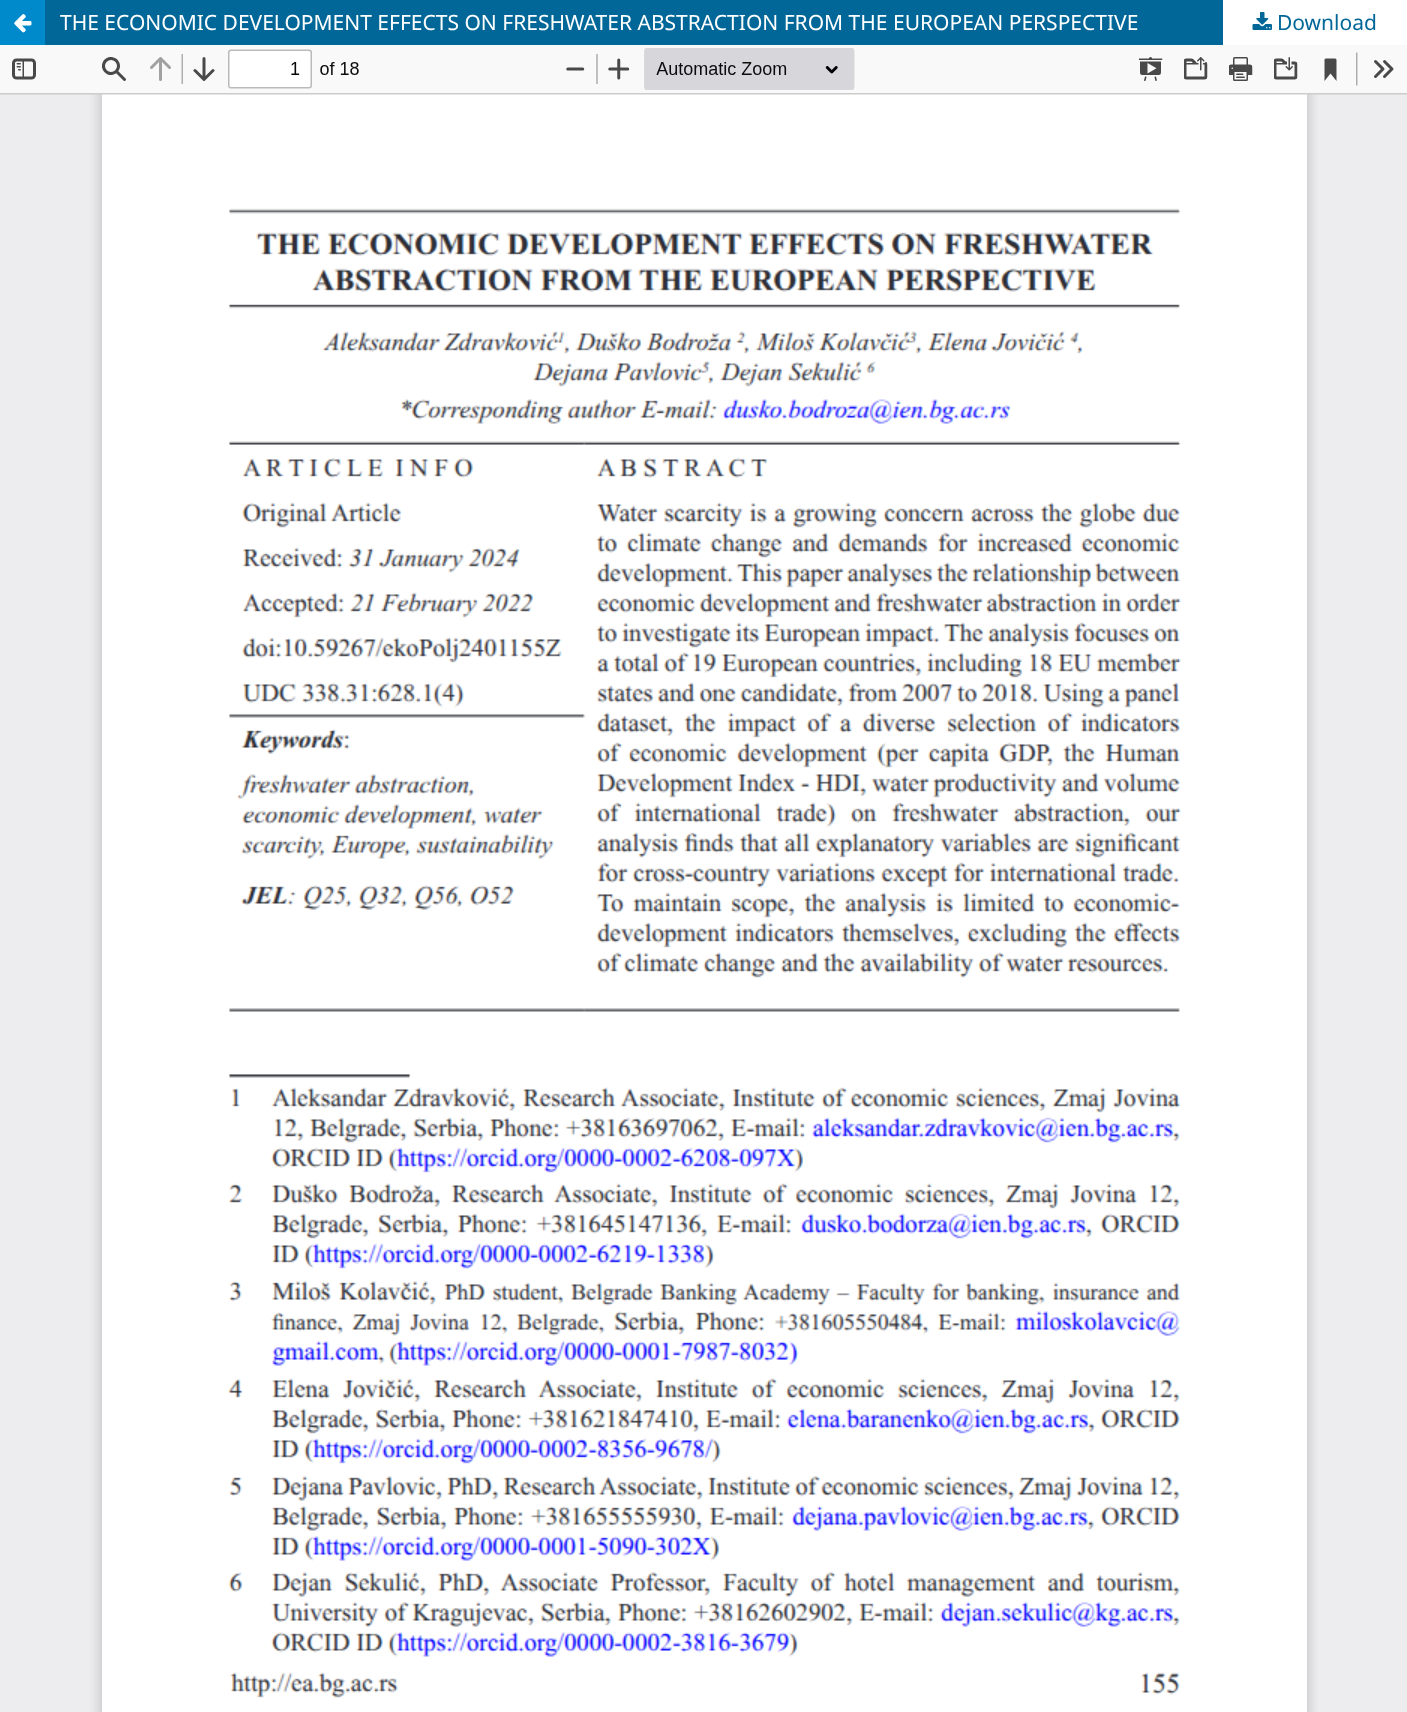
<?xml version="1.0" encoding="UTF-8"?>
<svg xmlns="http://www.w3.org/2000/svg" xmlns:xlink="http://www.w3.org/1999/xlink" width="1407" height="1712">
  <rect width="100%" height="100%" fill="#ffffff" />
  <rect x="45" width="1178" height="45" fill="#006798" />
  <rect width="45" height="45" fill="#008acb" />
  <image x="14" y="14" width="18" height="19" xlink:href="image1.png" />
  <image x="1252" y="12" width="20" height="18" xlink:href="image2.png" />
  <image x="0" y="45" width="1407" height="1667" xlink:href="image3.png" />
  <text x="60" y="30" style="font-family: Noto Sans; font-size: 21px; fill: #ffffff">THE ECONOMIC DEVELOPMENT EFFECTS ON FRESHWATER ABSTRACTION FROM THE EUROPEAN PERSPECTIVE</text>
  <text x="1277" y="30" style="font-family: Noto Sans; font-size: 21px; fill: #006798">Download</text>
</svg>
